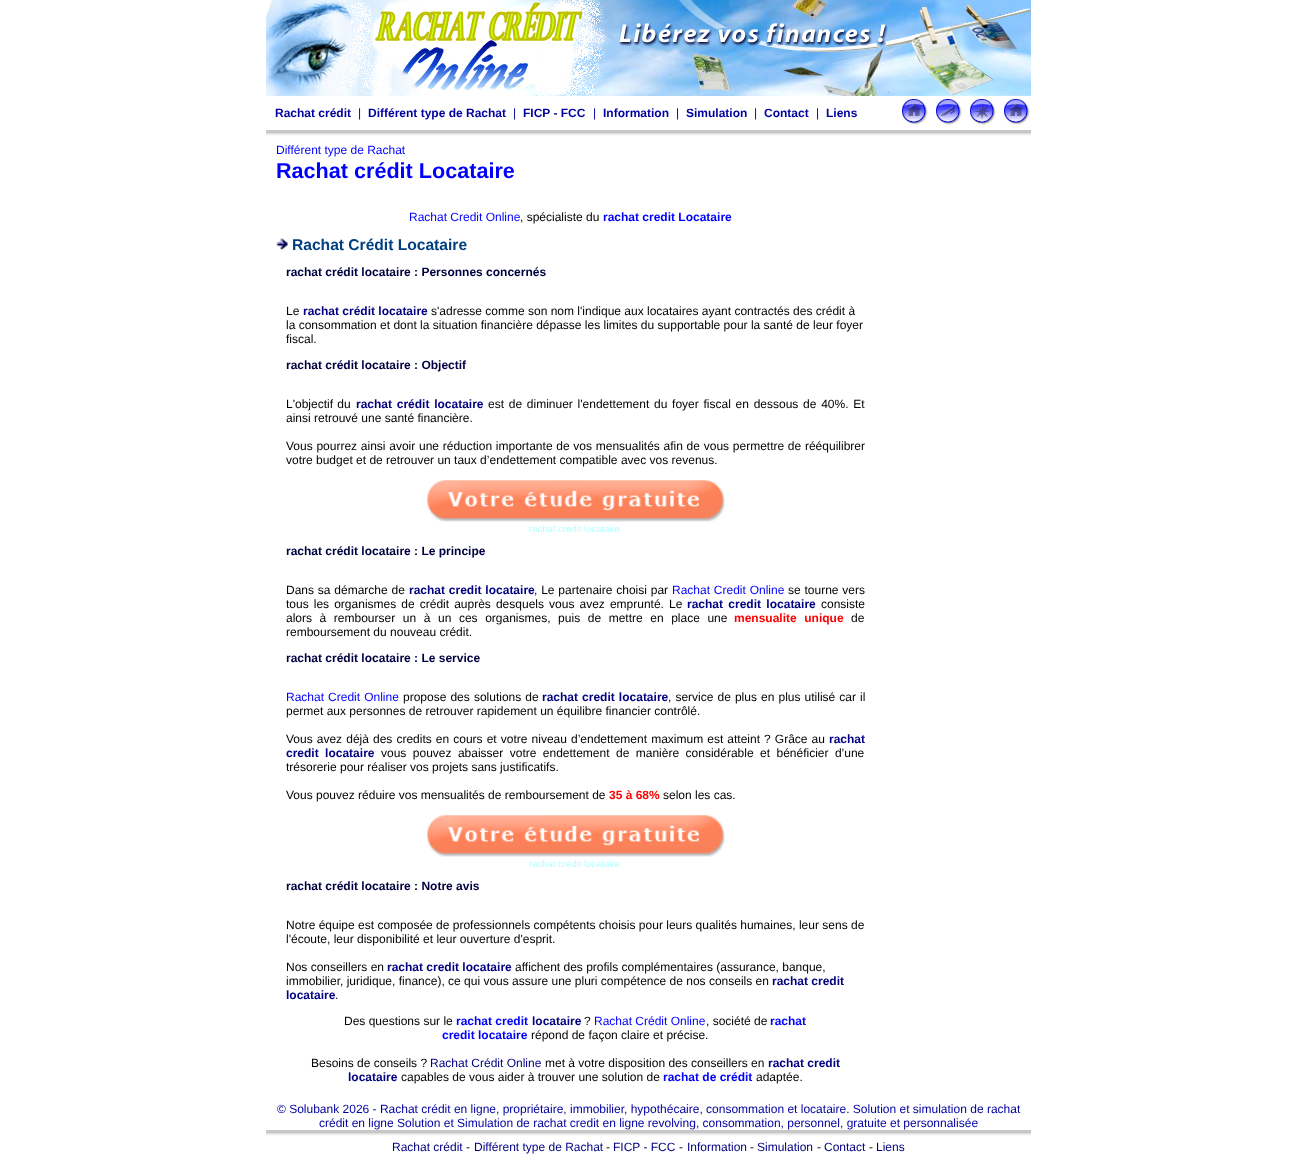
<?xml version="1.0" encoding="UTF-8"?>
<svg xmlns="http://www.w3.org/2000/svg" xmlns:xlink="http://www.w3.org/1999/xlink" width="1297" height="1156">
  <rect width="100%" height="100%" fill="#ffffff" />
  <image x="266" y="0" width="765" height="96" xlink:href="image1.png" />
  <image x="902" y="99" width="26" height="26" xlink:href="image2.png" />
  <image x="936" y="99" width="26" height="26" xlink:href="image3.png" />
  <image x="970" y="99" width="26" height="26" xlink:href="image4.png" />
  <image x="1004" y="99" width="26" height="26" xlink:href="image2.png" />
  <image x="266" y="130" width="765" height="6" xlink:href="image5.png" />
  <image x="276" y="238" width="12" height="12" xlink:href="image6.png" />
  <image x="427" y="480" width="298" height="42" xlink:href="image7.png" />
  <image x="427" y="815" width="298" height="42" xlink:href="image7.png" />
  <image x="266" y="1130" width="765" height="6" xlink:href="image5.png" />
  <text x="275" y="117" style="font-family: Liberation Sans; font-size: 12px; font-weight: bold; fill: #0000a0">Rachat crédit</text>
  <text x="358" y="117" style="font-family: Liberation Sans; font-size: 12px; fill: #0000a0">|</text>
  <text x="368" y="117" style="font-family: Liberation Sans; font-size: 12px; font-weight: bold; fill: #0000a0">Différent type de Rachat</text>
  <text x="513" y="117" style="font-family: Liberation Sans; font-size: 12px; fill: #0000a0">|</text>
  <text x="523" y="117" style="font-family: Liberation Sans; font-size: 12px; font-weight: bold; fill: #0000a0">FICP - FCC</text>
  <text x="593" y="117" style="font-family: Liberation Sans; font-size: 12px; fill: #0000a0">|</text>
  <text x="603" y="117" style="font-family: Liberation Sans; font-size: 12px; font-weight: bold; fill: #0000a0">Information</text>
  <text x="676" y="117" style="font-family: Liberation Sans; font-size: 12px; fill: #0000a0">|</text>
  <text x="686" y="117" style="font-family: Liberation Sans; font-size: 12px; font-weight: bold; fill: #0000a0">Simulation</text>
  <text x="754" y="117" style="font-family: Liberation Sans; font-size: 12px; fill: #0000a0">|</text>
  <text x="764" y="117" style="font-family: Liberation Sans; font-size: 12px; font-weight: bold; fill: #0000a0">Contact</text>
  <text x="816" y="117" style="font-family: Liberation Sans; font-size: 12px; fill: #0000a0">|</text>
  <text x="826" y="117" style="font-family: Liberation Sans; font-size: 12px; font-weight: bold; fill: #0000a0">Liens</text>
  <text x="276" y="154" style="font-family: Liberation Sans; font-size: 12px; fill: #0000ff">Différent type de Rachat</text>
  <text x="276" y="178" style="font-family: Liberation Sans; font-size: 21.6px; font-weight: bold; fill: #0000ff">Rachat crédit Locataire</text>
  <text x="409" y="221" style="font-family: Liberation Sans; font-size: 12px; fill: #0000ff">Rachat Credit Online</text>
  <text x="520" y="221" style="font-family: Liberation Sans; font-size: 12px; fill: #000000">, spécialiste du</text>
  <text x="603" y="221" style="font-family: Liberation Sans; font-size: 12px; font-weight: bold; fill: #0000ff">rachat credit Locataire</text>
  <text x="292" y="250" style="font-family: Liberation Sans; font-size: 15.6px; font-weight: bold; fill: #004080">Rachat Crédit Locataire</text>
  <text x="286" y="276" style="font-family: Liberation Sans; font-size: 12px; font-weight: bold; fill: #000040">rachat crédit locataire : Personnes concernés</text>
  <text x="286" y="315" style="font-family: Liberation Sans; font-size: 12px; fill: #000000">Le</text>
  <text x="303" y="315" style="font-family: Liberation Sans; font-size: 12px; font-weight: bold; fill: #000080">rachat crédit locataire</text>
  <text x="431" y="315" style="font-family: Liberation Sans; font-size: 12px; fill: #000000">s'adresse comme son nom l'indique aux locataires ayant contractés des crédit à</text>
  <text x="286" y="329" style="font-family: Liberation Sans; font-size: 12px; fill: #000000">la consommation et dont la situation financière dépasse les limites du supportable pour la santé de leur foyer</text>
  <text x="286" y="343" style="font-family: Liberation Sans; font-size: 12px; fill: #000000">fiscal.</text>
  <text x="286" y="369" style="font-family: Liberation Sans; font-size: 12px; font-weight: bold; fill: #000040">rachat crédit locataire : Objectif</text>
  <text x="286" y="408" word-spacing="1" style="font-family: Liberation Sans; font-size: 12px; fill: #000000">L'objectif du</text>
  <text x="356" y="408" word-spacing="1.4" style="font-family: Liberation Sans; font-size: 12px; font-weight: bold; fill: #000080">rachat crédit locataire</text>
  <text x="488" y="408" word-spacing="1.4" style="font-family: Liberation Sans; font-size: 12px; fill: #000000">est de diminuer l'endettement du foyer fiscal en dessous de 40%. Et</text>
  <text x="286" y="422" style="font-family: Liberation Sans; font-size: 12px; fill: #000000">ainsi retrouvé une santé financière.</text>
  <text x="286" y="450" word-spacing="0.4" style="font-family: Liberation Sans; font-size: 12px; fill: #000000">Vous pourrez ainsi avoir une réduction importante de vos mensualités afin de vous permettre de rééquilibrer</text>
  <text x="286" y="464" style="font-family: Liberation Sans; font-size: 12px; fill: #000000">votre budget et de retrouver un taux d’endettement compatible avec vos revenus.</text>
  <text x="529" y="532" style="font-family: Liberation Sans; font-size: 9.5px; fill: #b5ffff">rachat credit locataire</text>
  <text x="286" y="555" style="font-family: Liberation Sans; font-size: 12px; font-weight: bold; fill: #000040">rachat crédit locataire : Le principe</text>
  <text x="286" y="594" word-spacing="0.5" style="font-family: Liberation Sans; font-size: 12px; fill: #000000">Dans sa démarche de</text>
  <text x="409" y="594" word-spacing="0.5" style="font-family: Liberation Sans; font-size: 12px; font-weight: bold; fill: #000080">rachat credit locataire</text>
  <text x="534" y="594" word-spacing="0.5" style="font-family: Liberation Sans; font-size: 12px; fill: #000000">, Le partenaire choisi par</text>
  <text x="672" y="594" word-spacing="0.5" style="font-family: Liberation Sans; font-size: 12px; fill: #0000ff">Rachat Credit Online</text>
  <text x="788" y="594" word-spacing="0.5" style="font-family: Liberation Sans; font-size: 12px; fill: #000000">se tourne vers</text>
  <text x="286" y="608" word-spacing="1.75" style="font-family: Liberation Sans; font-size: 12px; fill: #000000">tous les organismes de crédit auprès desquels vous avez emprunté. Le</text>
  <text x="687" y="608" word-spacing="2" style="font-family: Liberation Sans; font-size: 12px; font-weight: bold; fill: #000080">rachat credit locataire</text>
  <text x="821" y="608" style="font-family: Liberation Sans; font-size: 12px; fill: #000000">consiste</text>
  <text x="286" y="622" word-spacing="4.25" style="font-family: Liberation Sans; font-size: 12px; fill: #000000">alors à rembourser un à un ces organismes, puis de mettre en place une</text>
  <text x="734" y="622" word-spacing="4.25" style="font-family: Liberation Sans; font-size: 12px; font-weight: bold; fill: #ff0000">mensualite unique</text>
  <text x="851" y="622" style="font-family: Liberation Sans; font-size: 12px; fill: #000000">de</text>
  <text x="286" y="636" style="font-family: Liberation Sans; font-size: 12px; fill: #000000">remboursement du nouveau crédit.</text>
  <text x="286" y="662" style="font-family: Liberation Sans; font-size: 12px; font-weight: bold; fill: #000040">rachat crédit locataire : Le service</text>
  <text x="286" y="701" word-spacing="0.75" style="font-family: Liberation Sans; font-size: 12px; fill: #0000ff">Rachat Credit Online</text>
  <text x="403" y="701" word-spacing="0.75" style="font-family: Liberation Sans; font-size: 12px; fill: #000000">propose des solutions de</text>
  <text x="542" y="701" word-spacing="0.75" style="font-family: Liberation Sans; font-size: 12px; font-weight: bold; fill: #000080">rachat credit locataire</text>
  <text x="668" y="701" word-spacing="0.75" style="font-family: Liberation Sans; font-size: 12px; fill: #000000">, service de plus en plus utilisé car il</text>
  <text x="286" y="715" style="font-family: Liberation Sans; font-size: 12px; fill: #000000">permet aux personnes de retrouver rapidement un équilibre financier contrôlé.</text>
  <text x="286" y="743" word-spacing="0.75" style="font-family: Liberation Sans; font-size: 12px; fill: #000000">Vous avez déjà des credits en cours et votre niveau d’endettement maximum est atteint ? Grâce au</text>
  <text x="829" y="743" style="font-family: Liberation Sans; font-size: 12px; font-weight: bold; fill: #000080">rachat</text>
  <text x="286" y="757" word-spacing="3.1" style="font-family: Liberation Sans; font-size: 12px; font-weight: bold; fill: #000080">credit locataire</text>
  <text x="381" y="757" word-spacing="3.1" style="font-family: Liberation Sans; font-size: 12px; fill: #000000">vous pouvez abaisser votre endettement de manière considérable et bénéficier d’une</text>
  <text x="286" y="771" style="font-family: Liberation Sans; font-size: 12px; fill: #000000">trésorerie pour réaliser vos projets sans justificatifs.</text>
  <text x="286" y="799" style="font-family: Liberation Sans; font-size: 12px; fill: #000000">Vous pouvez réduire vos mensualités de remboursement de</text>
  <text x="609" y="799" style="font-family: Liberation Sans; font-size: 12px; font-weight: bold; fill: #ff0000">35 à 68%</text>
  <text x="663" y="799" style="font-family: Liberation Sans; font-size: 12px; fill: #000000">selon les cas.</text>
  <text x="529" y="867" style="font-family: Liberation Sans; font-size: 9.5px; fill: #b5ffff">rachat credit locataire</text>
  <text x="286" y="890" style="font-family: Liberation Sans; font-size: 12px; font-weight: bold; fill: #000040">rachat crédit locataire : Notre avis</text>
  <text x="286" y="929" style="font-family: Liberation Sans; font-size: 12px; fill: #000000">Notre équipe est composée de professionnels compétents choisis pour leurs qualités humaines, leur sens de</text>
  <text x="286" y="943" style="font-family: Liberation Sans; font-size: 12px; fill: #000000">l'écoute, leur disponibilité et leur ouverture d'esprit.</text>
  <text x="286" y="971" style="font-family: Liberation Sans; font-size: 12px; fill: #000000">Nos conseillers en</text>
  <text x="387" y="971" style="font-family: Liberation Sans; font-size: 12px; font-weight: bold; fill: #000080">rachat credit locataire</text>
  <text x="515" y="971" style="font-family: Liberation Sans; font-size: 12px; fill: #000000">affichent des profils complémentaires (assurance, banque,</text>
  <text x="286" y="985" style="font-family: Liberation Sans; font-size: 12px; fill: #000000">immobilier, juridique, finance), ce qui vous assure une pluri compétence de nos conseils en</text>
  <text x="772" y="985" style="font-family: Liberation Sans; font-size: 12px; font-weight: bold; fill: #000080">rachat credit</text>
  <text x="286" y="999" style="font-family: Liberation Sans; font-size: 12px; font-weight: bold; fill: #000080">locataire</text>
  <text x="335" y="999" style="font-family: Liberation Sans; font-size: 12px; fill: #000000">.</text>
  <text x="344" y="1025" style="font-family: Liberation Sans; font-size: 12px; fill: #000000">Des questions sur le</text>
  <text x="456" y="1025" style="font-family: Liberation Sans; font-size: 12px; font-weight: bold; fill: #0000ff">rachat credit</text>
  <text x="532" y="1025" style="font-family: Liberation Sans; font-size: 12px; font-weight: bold; fill: #000080">locataire</text>
  <text x="584" y="1025" style="font-family: Liberation Sans; font-size: 12px; fill: #000000">?</text>
  <text x="594" y="1025" style="font-family: Liberation Sans; font-size: 12px; fill: #0000ff">Rachat Crédit Online</text>
  <text x="706" y="1025" style="font-family: Liberation Sans; font-size: 12px; fill: #000000">, société de</text>
  <text x="770" y="1025" style="font-family: Liberation Sans; font-size: 12px; font-weight: bold; fill: #0000ff">rachat</text>
  <text x="442" y="1039" style="font-family: Liberation Sans; font-size: 12px; font-weight: bold; fill: #0000ff">credit locataire</text>
  <text x="531" y="1039" style="font-family: Liberation Sans; font-size: 12px; fill: #000000">répond de façon claire et précise.</text>
  <text x="311" y="1067" style="font-family: Liberation Sans; font-size: 12px; fill: #000000">Besoins de conseils ?</text>
  <text x="430" y="1067" style="font-family: Liberation Sans; font-size: 12px; fill: #000080">Rachat Crédit Online</text>
  <text x="545" y="1067" style="font-family: Liberation Sans; font-size: 12px; fill: #000000">met à votre disposition des conseillers en</text>
  <text x="768" y="1067" style="font-family: Liberation Sans; font-size: 12px; font-weight: bold; fill: #000080">rachat credit</text>
  <text x="348" y="1081" style="font-family: Liberation Sans; font-size: 12px; font-weight: bold; fill: #000080">locataire</text>
  <text x="401" y="1081" style="font-family: Liberation Sans; font-size: 12px; fill: #000000">capables de vous aider à trouver une solution de</text>
  <text x="663" y="1081" style="font-family: Liberation Sans; font-size: 12px; font-weight: bold; fill: #0000ff">rachat de crédit</text>
  <text x="756" y="1081" style="font-family: Liberation Sans; font-size: 12px; fill: #000000">adaptée.</text>
  <text x="277" y="1113" style="font-family: Liberation Sans; font-size: 12px; fill: #0000a0">© Solubank 2026 - Rachat crédit en ligne, propriétaire, immobilier, hypothécaire, consommation et locataire. Solution et simulation de rachat</text>
  <text x="319" y="1127" style="font-family: Liberation Sans; font-size: 12px; fill: #0000a0">crédit en ligne Solution et Simulation de rachat credit en ligne revolving, consommation, personnel, gratuite et personnalisée</text>
  <text x="392" y="1151" style="font-family: Liberation Sans; font-size: 12px; fill: #000080">Rachat crédit</text>
  <text x="466" y="1151" style="font-family: Liberation Sans; font-size: 12px; fill: #000000">-</text>
  <text x="474" y="1151" style="font-family: Liberation Sans; font-size: 12px; fill: #000080">Différent type de Rachat</text>
  <text x="606" y="1151" style="font-family: Liberation Sans; font-size: 12px; fill: #000000">-</text>
  <text x="613" y="1151" style="font-family: Liberation Sans; font-size: 12px; fill: #000080">FICP - FCC</text>
  <text x="679" y="1151" style="font-family: Liberation Sans; font-size: 12px; fill: #000000">-</text>
  <text x="687" y="1151" style="font-family: Liberation Sans; font-size: 12px; fill: #000080">Information</text>
  <text x="750" y="1151" style="font-family: Liberation Sans; font-size: 12px; fill: #000000">-</text>
  <text x="757" y="1151" style="font-family: Liberation Sans; font-size: 12px; fill: #000080">Simulation</text>
  <text x="817" y="1151" style="font-family: Liberation Sans; font-size: 12px; fill: #000000">-</text>
  <text x="824" y="1151" style="font-family: Liberation Sans; font-size: 12px; fill: #000080">Contact</text>
  <text x="869" y="1151" style="font-family: Liberation Sans; font-size: 12px; fill: #000000">-</text>
  <text x="876" y="1151" style="font-family: Liberation Sans; font-size: 12px; fill: #000080">Liens</text>
</svg>
